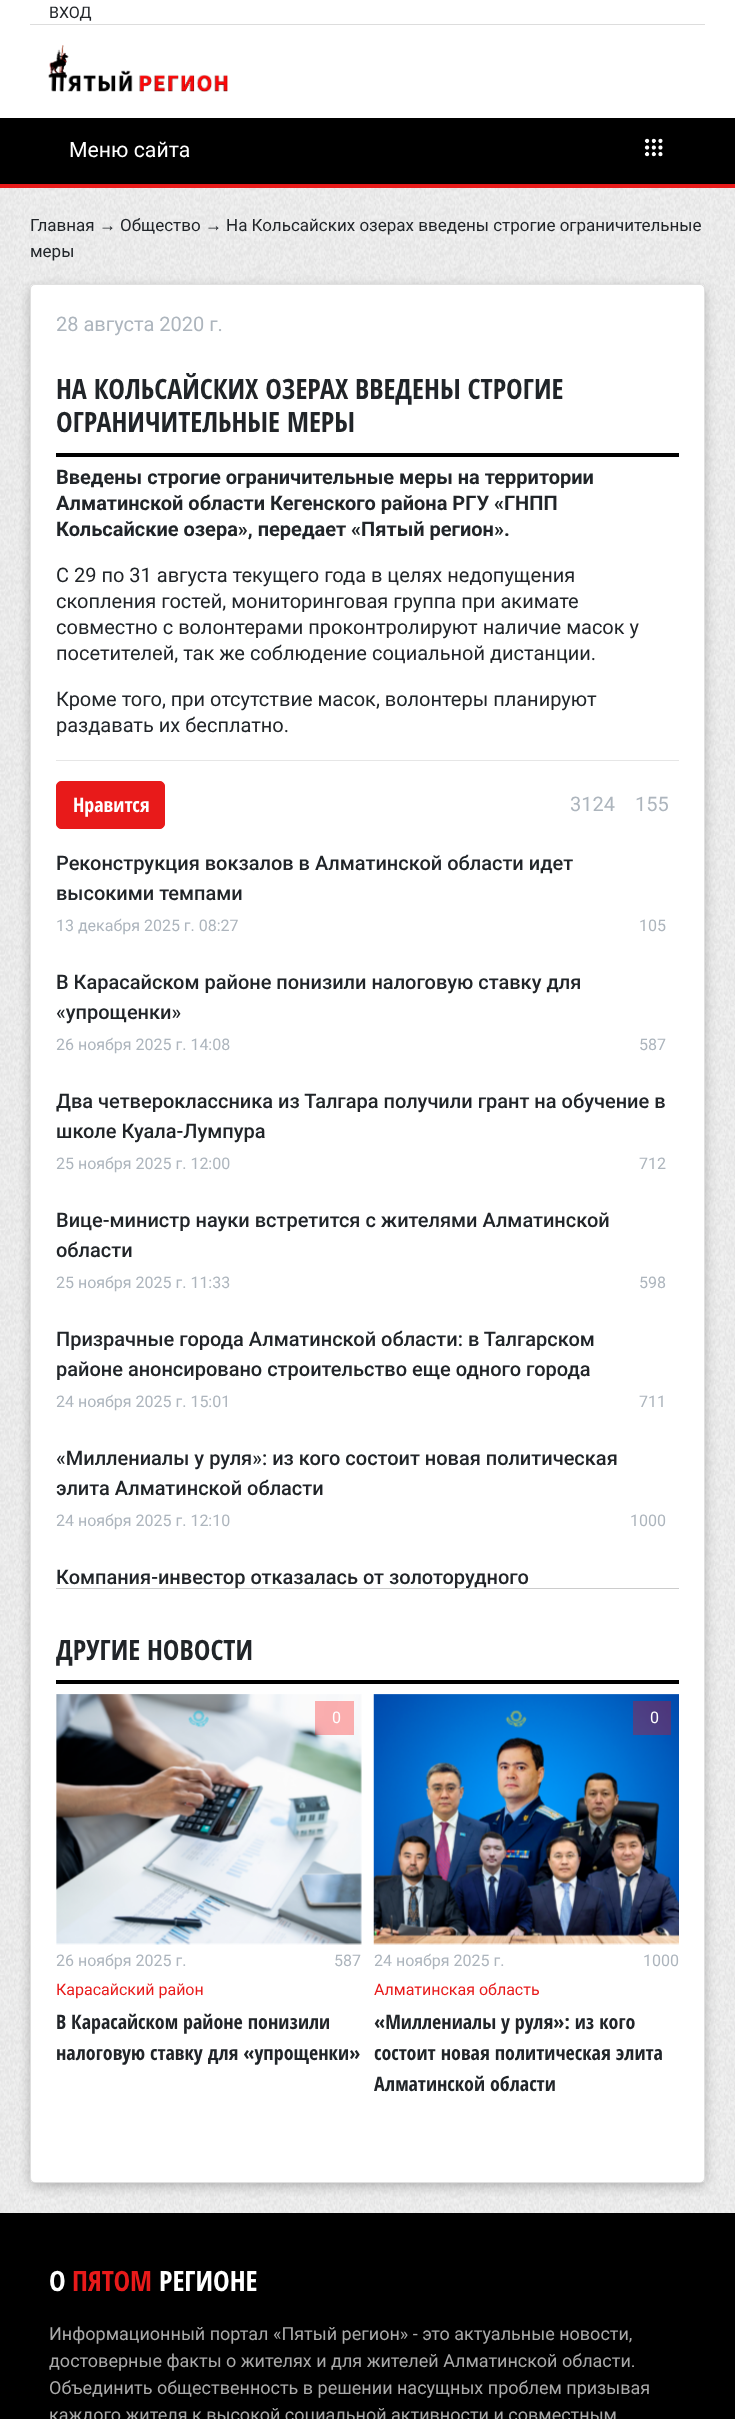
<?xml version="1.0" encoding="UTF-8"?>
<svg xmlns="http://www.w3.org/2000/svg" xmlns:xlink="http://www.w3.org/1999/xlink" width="735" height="2419">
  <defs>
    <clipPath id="clip1"><rect x="56" y="839" width="623" height="749" /></clipPath>
  </defs>
  <rect width="100%" height="100%" fill="#ffffff" />
  <image x="0" y="188" width="735" height="2025" xlink:href="image1.png" />
  <rect x="30" y="24" width="675" height="1" fill="#dddddd" />
  <image x="48" y="45" width="180" height="47" xlink:href="image2.png" />
  <rect y="118" width="735" height="66" fill="#000000" />
  <rect y="184" width="735" height="4" fill="#e81a1a" />
  <image x="644" y="138" width="19" height="19" xlink:href="image3.png" />
  <rect x="30" y="288" width="675" height="1898" rx="5" fill="#000000" fill-opacity="0.25" filter="blur(6px)" />
  <rect x="30" y="284" width="675" height="1899" rx="5" fill="#ffffff" />
  <rect x="30.5" y="284.5" width="674" height="1898" rx="4.5" fill="none" stroke="#000000" stroke-opacity="0.12" />
  <rect x="56" y="453" width="623" height="4" fill="#000000" />
  <rect x="56" y="760" width="623" height="1" fill="#e6e6e6" />
  <rect x="56.5" y="781.5" width="108" height="47" rx="4.5" fill="#e81a1a" stroke="#e81a1a" />
  <rect x="56" y="1588" width="623" height="1" fill="#cccccc" />
  <rect x="56" y="1680" width="623" height="4" fill="#000000" />
  <image x="56" y="1694" width="306" height="251" xlink:href="image4.png" />
  <rect x="315" y="1701" width="39" height="34" fill="#ff0000" fill-opacity="0.3" />
  <image x="373" y="1694" width="306" height="251" xlink:href="image5.png" />
  <rect x="633" y="1701" width="38" height="34" fill="#ff0000" fill-opacity="0.3" />
  <rect y="2213" width="735" height="206" fill="#000000" />
  <text x="49" y="18" style="font-family: Roboto; font-size: 16px; fill: #212529">ВХОД</text>
  <text x="69" y="157" style="font-family: Roboto; font-size: 21.25px; fill: #ffffff">Меню сайта</text>
  <text x="30" y="231" style="font-family: Roboto; font-size: 17px; fill: #212529">Главная</text>
  <text x="99" y="231" style="font-family: Liberation Sans; font-size: 17px; fill: #212529">→</text>
  <text x="120" y="231" style="font-family: Roboto; font-size: 17px; fill: #212529">Общество</text>
  <text x="205" y="231" style="font-family: Liberation Sans; font-size: 17px; fill: #212529">→</text>
  <text x="226" y="231" style="font-family: Roboto; font-size: 17px; fill: #212529">На Кольсайских озерах введены строгие ограничительные</text>
  <text x="30" y="257" style="font-family: Roboto; font-size: 17px; fill: #212529">меры</text>
  <text x="56" y="331" style="font-family: Roboto; font-size: 20px; fill: #adb5bd">28 августа 2020 г.</text>
  <text x="56" y="399" style="font-family: Open Sans Condensed; font-size: 28px; font-weight: bold; fill: #212529">НА КОЛЬСАЙСКИХ ОЗЕРАХ ВВЕДЕНЫ СТРОГИЕ</text>
  <text x="56" y="432" style="font-family: Open Sans Condensed; font-size: 28px; font-weight: bold; fill: #212529">ОГРАНИЧИТЕЛЬНЫЕ МЕРЫ</text>
  <text x="56" y="484" style="font-family: Roboto; font-size: 20px; font-weight: bold; fill: #212529">Введены строгие ограничительные меры на территории</text>
  <text x="56" y="510" style="font-family: Roboto; font-size: 20px; font-weight: bold; fill: #212529">Алматинской области Кегенского района РГУ «ГНПП</text>
  <text x="56" y="536" style="font-family: Roboto; font-size: 20px; font-weight: bold; fill: #212529">Кольсайские озера», передает «Пятый регион».</text>
  <text x="56" y="582" style="font-family: Roboto; font-size: 20px; fill: #212529">С 29 по 31 августа текущего года в целях недопущения</text>
  <text x="56" y="608" style="font-family: Roboto; font-size: 20px; fill: #212529">скопления гостей, мониторинговая группа при акимате</text>
  <text x="56" y="634" style="font-family: Roboto; font-size: 20px; fill: #212529">совместно с волонтерами проконтролируют наличие масок у</text>
  <text x="56" y="660" style="font-family: Roboto; font-size: 20px; fill: #212529">посетителей, так же соблюдение социальной дистанции.</text>
  <text x="56" y="706" style="font-family: Roboto; font-size: 20px; fill: #212529">Кроме того, при отсутствие масок, волонтеры планируют</text>
  <text x="56" y="732" style="font-family: Roboto; font-size: 20px; fill: #212529">раздавать их бесплатно.</text>
  <text x="73" y="812" style="font-family: Open Sans Condensed; font-size: 20px; font-weight: bold; fill: #ffffff">Нравится</text>
  <text x="570" y="811" style="font-family: Roboto; font-size: 20px; fill: #adb5bd">3124</text>
  <text x="635" y="811" style="font-family: Roboto; font-size: 20px; fill: #adb5bd">155</text>
  <text x="56" y="870" style="font-family: Roboto; font-size: 20px; font-weight: 500; fill: #212529">Реконструкция вокзалов в Алматинской области идет</text>
  <text x="56" y="900" style="font-family: Roboto; font-size: 20px; font-weight: 500; fill: #212529">высокими темпами</text>
  <text x="56" y="931" style="font-family: Roboto; font-size: 16px; fill: #adb5bd">13 декабря 2025 г. 08:27</text>
  <text x="639" y="931" style="font-family: Roboto; font-size: 16px; fill: #adb5bd">105</text>
  <text x="56" y="989" style="font-family: Roboto; font-size: 20px; font-weight: 500; fill: #212529">В Карасайском районе понизили налоговую ставку для</text>
  <text x="56" y="1019" style="font-family: Roboto; font-size: 20px; font-weight: 500; fill: #212529">«упрощенки»</text>
  <text x="56" y="1050" style="font-family: Roboto; font-size: 16px; fill: #adb5bd">26 ноября 2025 г. 14:08</text>
  <text x="639" y="1050" style="font-family: Roboto; font-size: 16px; fill: #adb5bd">587</text>
  <text x="56" y="1108" style="font-family: Roboto; font-size: 20px; font-weight: 500; fill: #212529">Два четвероклассника из Талгара получили грант на обучение в</text>
  <text x="56" y="1138" style="font-family: Roboto; font-size: 20px; font-weight: 500; fill: #212529">школе Куала-Лумпура</text>
  <text x="56" y="1169" style="font-family: Roboto; font-size: 16px; fill: #adb5bd">25 ноября 2025 г. 12:00</text>
  <text x="639" y="1169" style="font-family: Roboto; font-size: 16px; fill: #adb5bd">712</text>
  <text x="56" y="1227" style="font-family: Roboto; font-size: 20px; font-weight: 500; fill: #212529">Вице-министр науки встретится с жителями Алматинской</text>
  <text x="56" y="1257" style="font-family: Roboto; font-size: 20px; font-weight: 500; fill: #212529">области</text>
  <text x="56" y="1288" style="font-family: Roboto; font-size: 16px; fill: #adb5bd">25 ноября 2025 г. 11:33</text>
  <text x="639" y="1288" style="font-family: Roboto; font-size: 16px; fill: #adb5bd">598</text>
  <text x="56" y="1346" style="font-family: Roboto; font-size: 20px; font-weight: 500; fill: #212529">Призрачные города Алматинской области: в Талгарском</text>
  <text x="56" y="1376" style="font-family: Roboto; font-size: 20px; font-weight: 500; fill: #212529">районе анонсировано строительство еще одного города</text>
  <text x="56" y="1407" style="font-family: Roboto; font-size: 16px; fill: #adb5bd">24 ноября 2025 г. 15:01</text>
  <text x="639" y="1407" style="font-family: Roboto; font-size: 16px; fill: #adb5bd">711</text>
  <text x="56" y="1465" style="font-family: Roboto; font-size: 20px; font-weight: 500; fill: #212529">«Миллениалы у руля»: из кого состоит новая политическая</text>
  <text x="56" y="1495" style="font-family: Roboto; font-size: 20px; font-weight: 500; fill: #212529">элита Алматинской области</text>
  <text x="56" y="1526" style="font-family: Roboto; font-size: 16px; fill: #adb5bd">24 ноября 2025 г. 12:10</text>
  <text x="630" y="1526" style="font-family: Roboto; font-size: 16px; fill: #adb5bd">1000</text>
  <g clip-path="url(#clip1)">
    <text x="56" y="1584" style="font-family: Roboto; font-size: 20px; font-weight: 500; fill: #212529">Компания-инвестор отказалась от золоторудного</text>
  </g>
  <text x="56" y="1660" style="font-family: Open Sans Condensed; font-size: 28px; font-weight: bold; fill: #212529">ДРУГИЕ НОВОСТИ</text>
  <text x="332" y="1723" style="font-family: Roboto; font-size: 16px; fill: #ffffff">0</text>
  <text x="56" y="1966" style="font-family: Roboto; font-size: 16px; fill: #adb5bd">26 ноября 2025 г.</text>
  <text x="334" y="1966" style="font-family: Roboto; font-size: 16px; fill: #adb5bd">587</text>
  <text x="56" y="1995" style="font-family: Roboto; font-size: 16px; fill: #e81a1a">Карасайский район</text>
  <text x="56" y="2029" style="font-family: Open Sans Condensed; font-size: 20px; font-weight: bold; fill: #212529">В Карасайском районе понизили</text>
  <text x="56" y="2060" style="font-family: Open Sans Condensed; font-size: 20px; font-weight: bold; fill: #212529">налоговую ставку для «упрощенки»</text>
  <text x="650" y="1723" style="font-family: Roboto; font-size: 16px; fill: #ffffff">0</text>
  <text x="374" y="1966" style="font-family: Roboto; font-size: 16px; fill: #adb5bd">24 ноября 2025 г.</text>
  <text x="643" y="1966" style="font-family: Roboto; font-size: 16px; fill: #adb5bd">1000</text>
  <text x="374" y="1995" style="font-family: Roboto; font-size: 16px; fill: #e81a1a">Алматинская область</text>
  <text x="374" y="2029" style="font-family: Open Sans Condensed; font-size: 20px; font-weight: bold; fill: #212529">«Миллениалы у руля»: из кого</text>
  <text x="374" y="2060" style="font-family: Open Sans Condensed; font-size: 20px; font-weight: bold; fill: #212529">состоит новая политическая элита</text>
  <text x="374" y="2091" style="font-family: Open Sans Condensed; font-size: 20px; font-weight: bold; fill: #212529">Алматинской области</text>
  <text x="49" y="2291" style="font-family: Open Sans Condensed; font-size: 28px; font-weight: bold; fill: #ffffff">О</text>
  <text x="72" y="2291" style="font-family: Open Sans Condensed; font-size: 28px; font-weight: bold; fill: #e81a1a">ПЯТОМ</text>
  <text x="159" y="2291" style="font-family: Open Sans Condensed; font-size: 28px; font-weight: bold; fill: #ffffff">РЕГИОНЕ</text>
  <text x="49" y="2340" style="font-family: Roboto; font-size: 18px; fill: #aaaaaa">Информационный портал «Пятый регион» - это актуальные новости,</text>
  <text x="49" y="2367" style="font-family: Roboto; font-size: 18px; fill: #aaaaaa">достоверные факты о жителях и для жителей Алматинской области.</text>
  <text x="49" y="2394" style="font-family: Roboto; font-size: 18px; fill: #aaaaaa">Объединить общественность в решении насущных проблем призывая</text>
  <text x="49" y="2421" style="font-family: Roboto; font-size: 18px; fill: #aaaaaa">каждого жителя к высокой социальной активности и совместным</text>
</svg>
